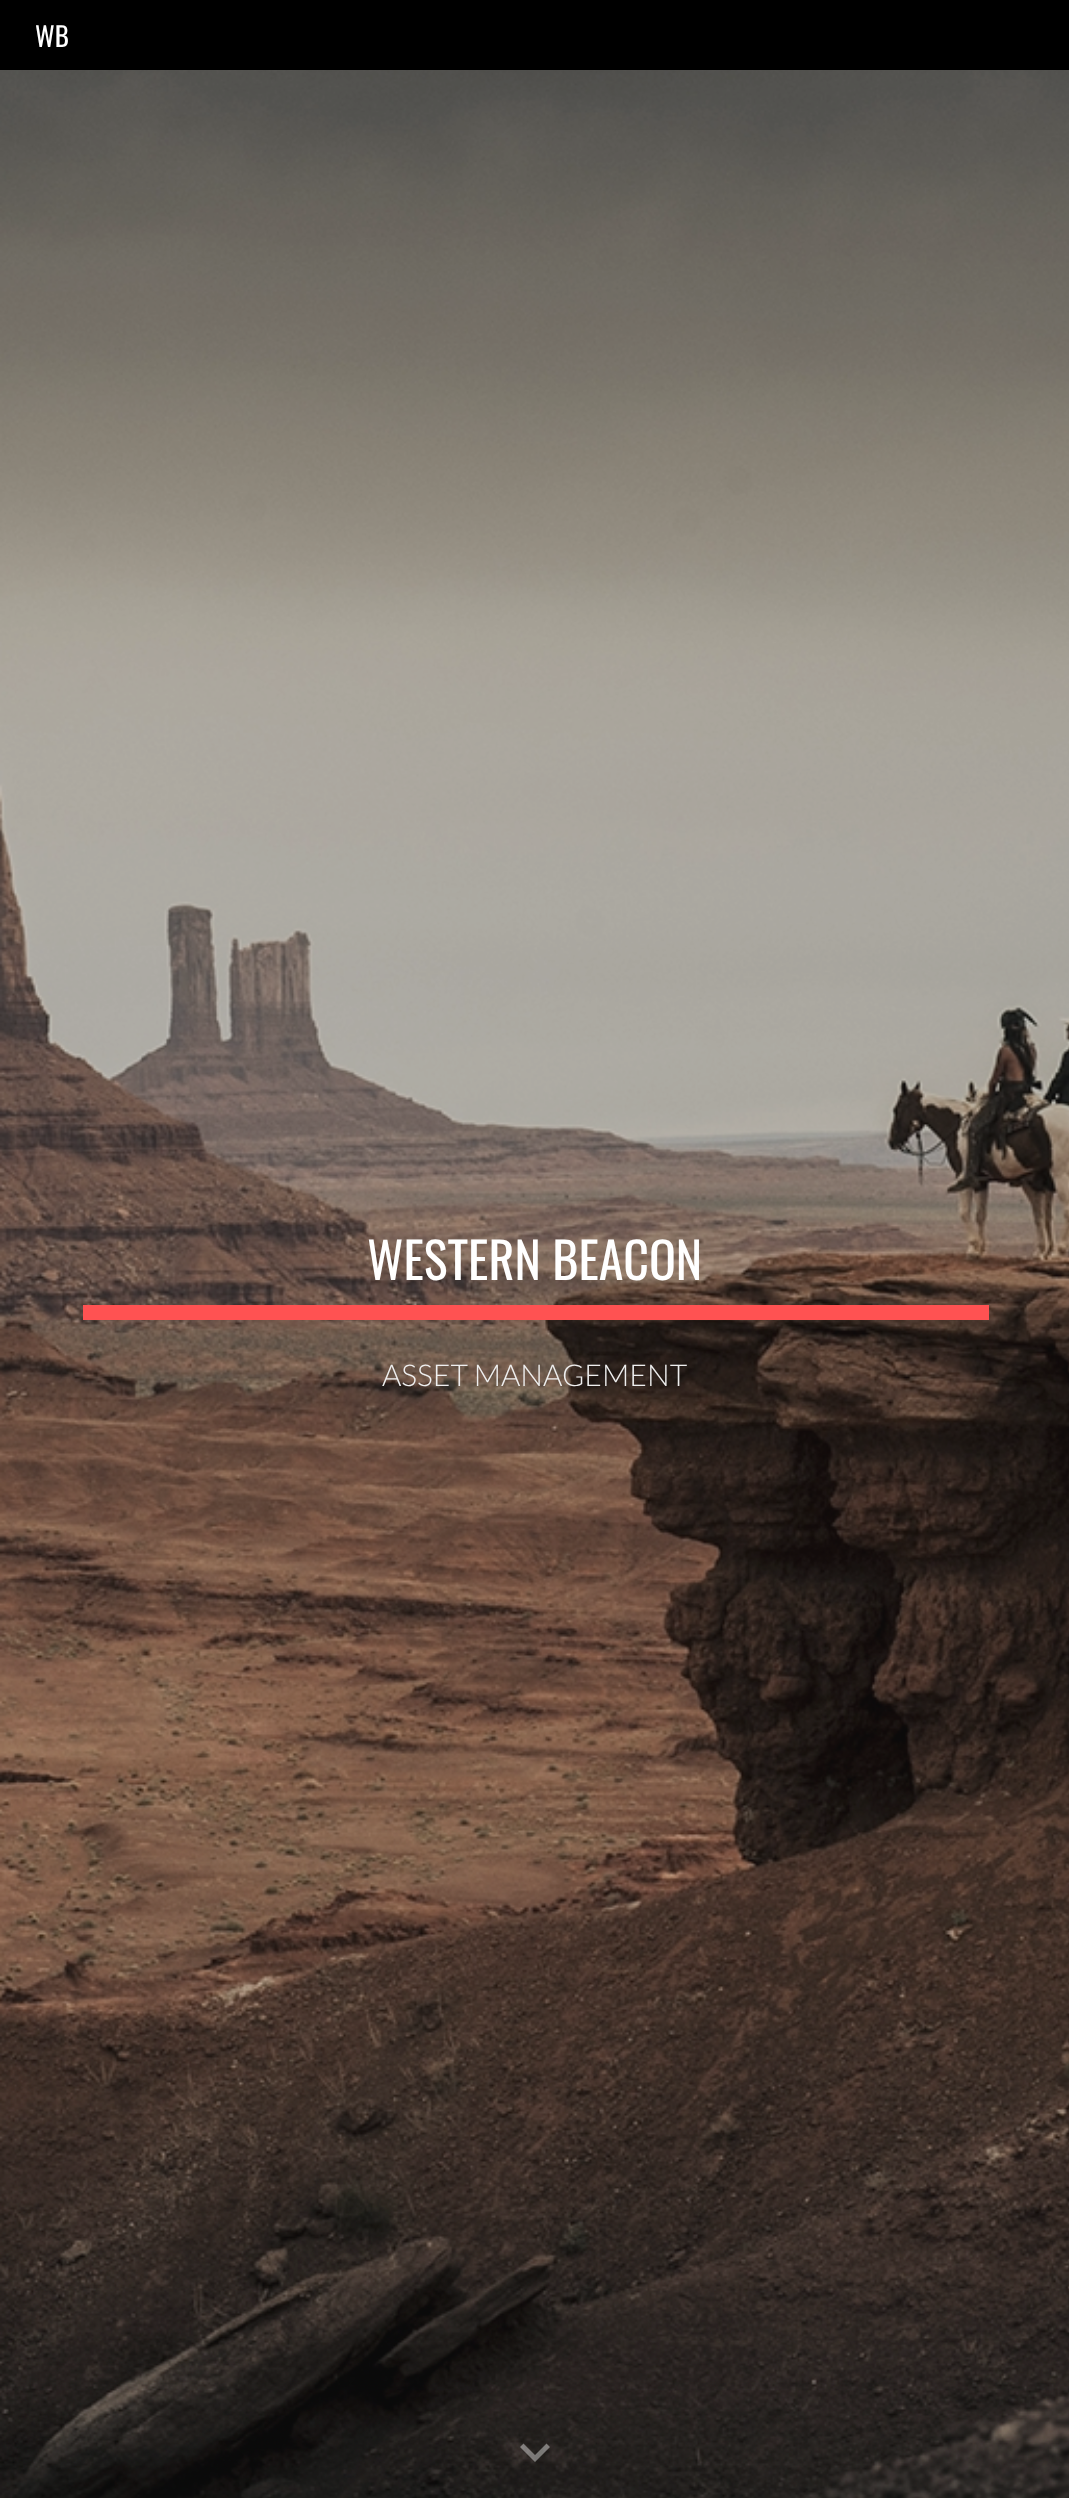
<?xml version="1.0" encoding="UTF-8"?>
<svg xmlns="http://www.w3.org/2000/svg" xmlns:xlink="http://www.w3.org/1999/xlink" width="1069" height="2498">
  <rect width="100%" height="100%" fill="#ffffff" />
  <rect width="1069" height="70" fill="#000000" />
  <image x="0" y="70" width="1069" height="2428" xlink:href="image1.png" />
  <rect x="83" y="1305" width="906" height="15" fill="#ff5252" />
  <path d="M 523.5 2443.5 l 11.5 11.5 l 11.5 -11.5 l 3.5 3.5 l -15 15 l -15 -15 z" fill="#ffffff" fill-opacity="0.4" />
  <text x="35" y="47" style="font-family: Oswald; font-size: 27px; fill: #ffffff">WB</text>
  <text x="367" y="1280" style="font-family: Oswald; font-size: 50px; fill: #ffffff">WESTERN BEACON</text>
  <text x="382" y="1386" style="font-family: Lato; font-size: 30px; font-weight: 300; fill: #efefef">ASSET MANAGEMENT</text>
</svg>
